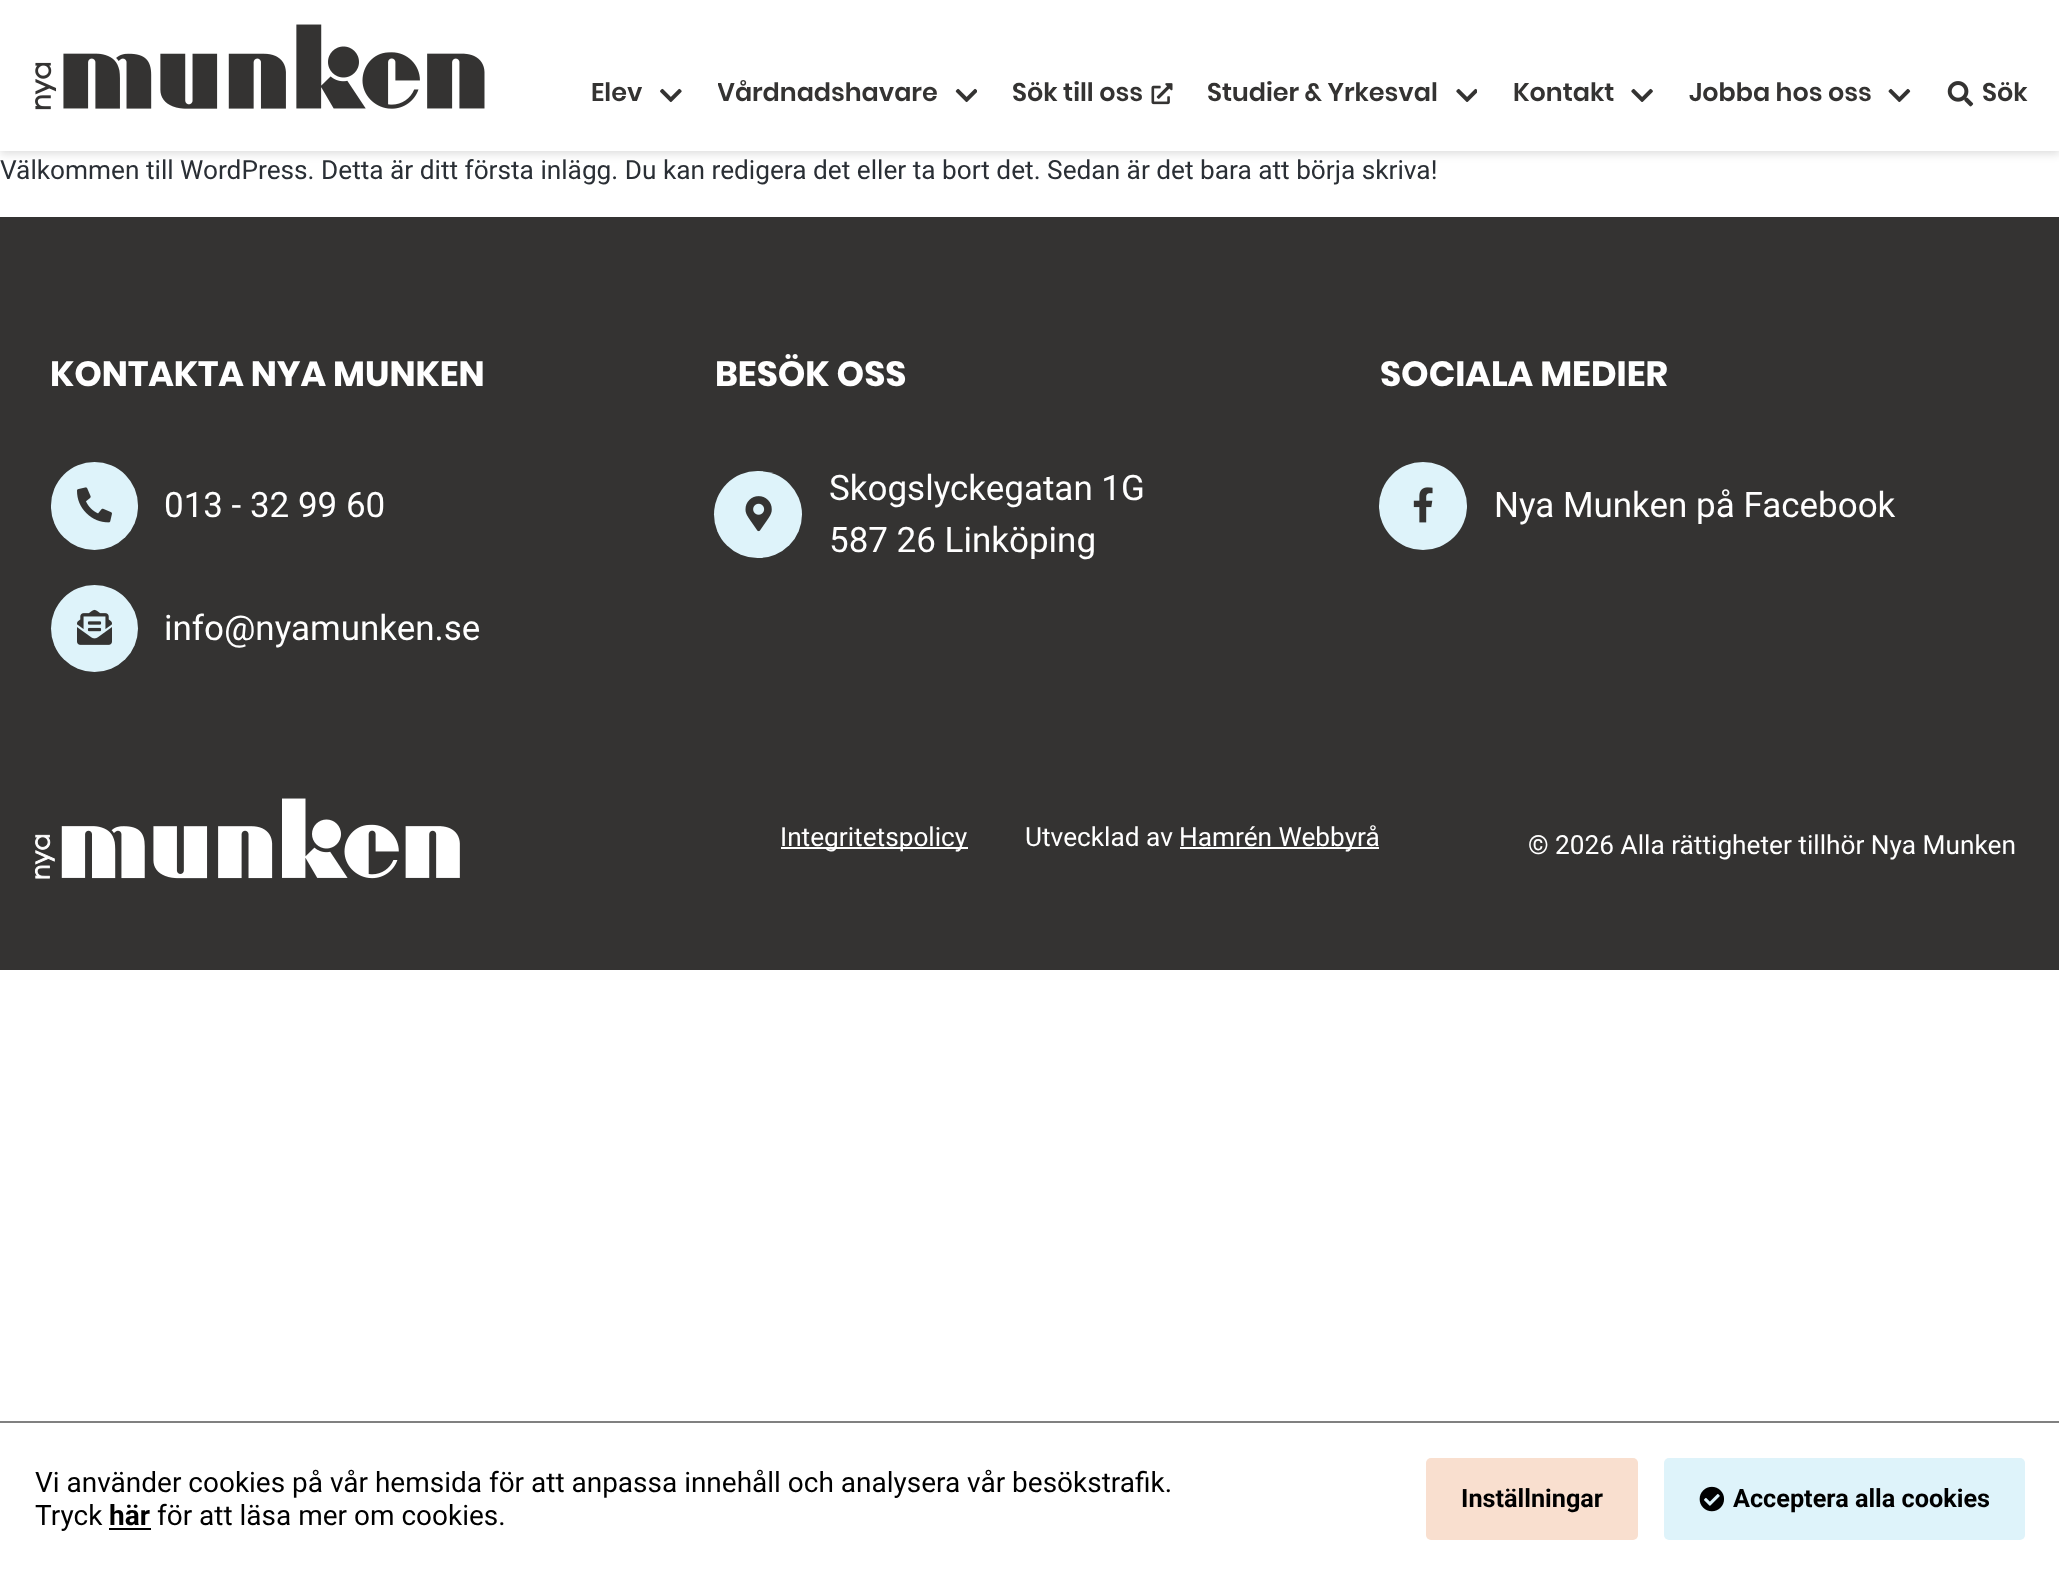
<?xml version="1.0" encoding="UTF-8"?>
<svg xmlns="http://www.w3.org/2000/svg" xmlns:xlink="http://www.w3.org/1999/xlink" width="2059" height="1575">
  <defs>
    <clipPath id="clip1"><rect x="718" y="77" width="259" height="39" /></clipPath>
  </defs>
  <rect width="100%" height="100%" fill="#ffffff" />
  <rect y="4" width="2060" height="150" fill="#000000" fill-opacity="0.13" filter="blur(4.5px)" />
  <rect width="2059" height="151" fill="#ffffff" />
  <image x="35" y="24" width="450" height="86" xlink:href="image1.png" />
  <image x="660" y="88" width="22" height="15" xlink:href="image2.png" />
  <image x="955" y="88" width="22" height="15" xlink:href="image3.png" />
  <image x="1151" y="83" width="22" height="22" xlink:href="image4.png" />
  <image x="1456" y="88" width="21" height="14" xlink:href="image5.png" />
  <image x="1631" y="88" width="22" height="14" xlink:href="image6.png" />
  <image x="1888" y="88" width="23" height="15" xlink:href="image7.png" />
  <image x="1947" y="81" width="27" height="26" xlink:href="image8.png" />
  <rect y="217" width="2059" height="753" fill="#343332" />
  <rect x="51" y="462" width="87" height="88" rx="43.5" fill="#def3fa" />
  <image x="77" y="487" width="35" height="36" xlink:href="image9.png" />
  <circle cx="94.5" cy="628.5" r="43.5" fill="#def3fa" />
  <image x="77" y="609" width="35" height="36" xlink:href="image10.png" />
  <rect x="714" y="471" width="88" height="87" rx="43.5" fill="#def3fa" />
  <image x="745" y="496" width="27" height="36" xlink:href="image11.png" />
  <circle cx="1423" cy="506" r="44" fill="#def3fa" />
  <image x="1413" y="487" width="20" height="36" xlink:href="image12.png" />
  <image x="34" y="798" width="426" height="81" xlink:href="image13.png" />
  <rect x="781" y="847" width="187" height="2" fill="#ffffff" />
  <rect x="1180" y="847" width="199" height="2" fill="#ffffff" />
  <rect y="1421" width="2059" height="2" fill="#808080" />
  <rect x="109" y="1528" width="42" height="2" fill="#000000" />
  <rect x="1426" y="1458" width="212" height="82" rx="5" fill="#f9dfcf" />
  <rect x="1664" y="1458" width="361" height="82" rx="5" fill="#def3fa" />
  <image x="1699" y="1486" width="25" height="26" xlink:href="image14.png" />
  <text x="591" y="101" style="font-family: Poppins; font-size: 25.4px; font-weight: 600; fill: #343332">Elev</text>
  <g clip-path="url(#clip1)">
    <text x="717" y="101" style="font-family: Poppins; font-size: 25.4px; font-weight: 600; fill: #343332">Vårdnadshavare</text>
  </g>
  <text x="1012" y="101" style="font-family: Poppins; font-size: 25.4px; font-weight: 600; fill: #343332">Sök till oss</text>
  <text x="1207" y="101" style="font-family: Poppins; font-size: 25.4px; font-weight: 600; fill: #343332">Studier &amp; Yrkesval</text>
  <text x="1513" y="101" style="font-family: Poppins; font-size: 25.4px; font-weight: 600; fill: #343332">Kontakt</text>
  <text x="1689" y="101" style="font-family: Poppins; font-size: 25.4px; font-weight: 600; fill: #343332">Jobba hos oss</text>
  <text x="1982" y="101" style="font-family: Poppins; font-size: 25.4px; font-weight: 600; fill: #343332">Sök</text>
  <text x="0" y="179" style="font-family: Roboto; font-size: 26.25px; fill: #2a2f35">Välkommen till WordPress. Detta är ditt första inlägg. Du kan redigera det eller ta bort det. Sedan är det bara att börja skriva!</text>
  <text x="50" y="386" style="font-family: Poppins; font-size: 35px; font-weight: bold; fill: #ffffff">KONTAKTA NYA MUNKEN</text>
  <text x="164" y="517" style="font-family: Roboto; font-size: 35px; fill: #ffffff">013 - 32 99 60</text>
  <text x="164" y="640" style="font-family: Roboto; font-size: 35px; fill: #ffffff">info@nyamunken.se</text>
  <text x="715" y="386" style="font-family: Poppins; font-size: 35px; font-weight: bold; fill: #ffffff">BESÖK OSS</text>
  <text x="829" y="500" style="font-family: Roboto; font-size: 35px; fill: #ffffff">Skogslyckegatan 1G</text>
  <text x="829" y="552" style="font-family: Roboto; font-size: 35px; fill: #ffffff">587 26 Linköping</text>
  <text x="1380" y="386" style="font-family: Poppins; font-size: 35px; font-weight: bold; fill: #ffffff">SOCIALA MEDIER</text>
  <text x="1494" y="517" style="font-family: Roboto; font-size: 35px; fill: #ffffff">Nya Munken på Facebook</text>
  <text x="780" y="846" style="font-family: Roboto; font-size: 26.25px; fill: #ffffff">Integritetspolicy</text>
  <text x="1025" y="846" style="font-family: Roboto; font-size: 26.25px; fill: #ffffff">Utvecklad av</text>
  <text x="1179" y="846" style="font-family: Roboto; font-size: 26.25px; fill: #ffffff">Hamrén Webbyrå</text>
  <text x="1528" y="854" style="font-family: Roboto; font-size: 26.25px; fill: #ffffff">© 2026 Alla rättigheter tillhör Nya Munken</text>
  <text x="35" y="1492" style="font-family: Roboto; font-size: 28px; fill: #000000">Vi använder cookies på vår hemsida för att anpassa innehåll och analysera vår besökstrafik.</text>
  <text x="35" y="1525" style="font-family: Roboto; font-size: 28px; fill: #000000">Tryck</text>
  <text x="109" y="1525" style="font-family: Roboto; font-size: 28px; font-weight: bold; fill: #000000">här</text>
  <text x="157" y="1525" style="font-family: Roboto; font-size: 28px; fill: #000000">för att läsa mer om cookies.</text>
  <text x="1461" y="1507" style="font-family: Roboto; font-size: 25.25px; font-weight: bold; fill: #000000">Inställningar</text>
  <text x="1733" y="1507" style="font-family: Roboto; font-size: 25.25px; font-weight: bold; fill: #000000">Acceptera alla cookies</text>
</svg>
